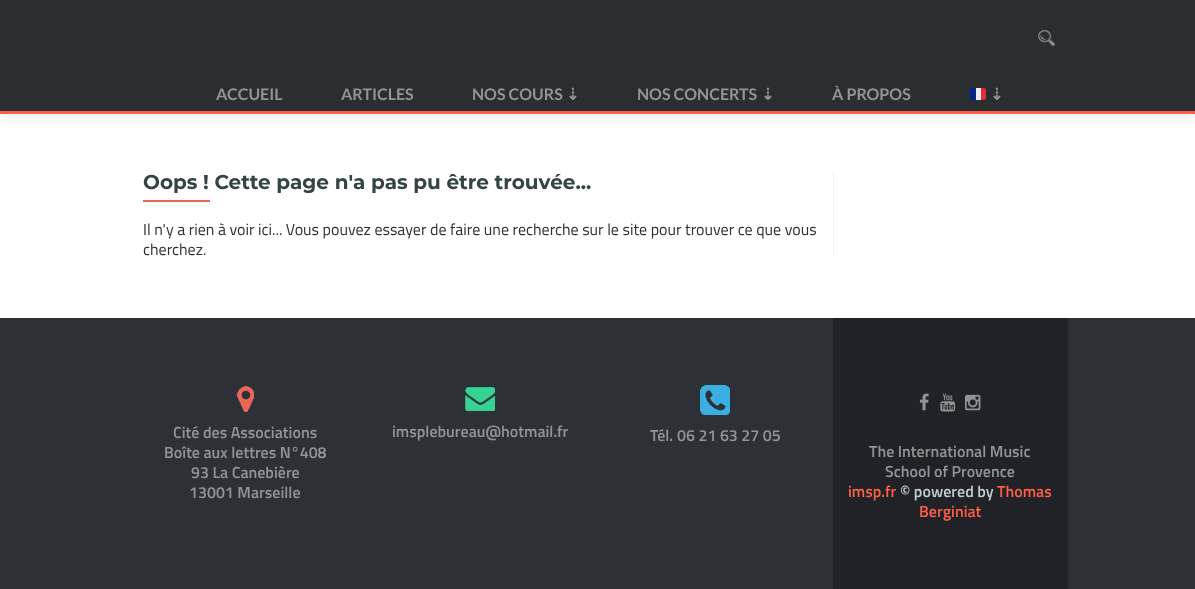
<?xml version="1.0" encoding="UTF-8"?>
<svg xmlns="http://www.w3.org/2000/svg" xmlns:xlink="http://www.w3.org/1999/xlink" width="1195" height="589">
  <defs>
    <clipPath id="clip1"><rect x="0" y="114" width="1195" height="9" /></clipPath>
  </defs>
  <rect width="100%" height="100%" fill="#2b2e31" />
  <rect y="114" width="1195" height="204" fill="#ffffff" />
  <g clip-path="url(#clip1)">
    <rect y="5" width="1195" height="114" fill="#323232" fill-opacity="0.08" filter="blur(5.5px)" />
  </g>
  <rect y="111" width="1195" height="3" fill="#fc5f45" />
  <image x="1038" y="30" width="17" height="16" xlink:href="image1.png" />
  <image x="970" y="88" width="16" height="12" xlink:href="image2.png" />
  <rect x="143" y="200" width="67" height="2" fill="#e96656" />
  <rect x="833" y="171" width="1" height="84" fill="#f2f2f2" />
  <rect y="318" width="1195" height="271" fill="#2e3037" />
  <image x="237" y="386" width="17" height="26" xlink:href="image3.png" />
  <image x="465" y="387" width="30" height="24" xlink:href="image4.png" />
  <image x="700" y="385" width="30" height="30" xlink:href="image5.png" />
  <rect x="833" y="318" width="235" height="271" fill="#202227" />
  <image x="919" y="393" width="10" height="18" xlink:href="image6.png" />
  <image x="940" y="393" width="16" height="19" xlink:href="image7.png" />
  <image x="965" y="394" width="16" height="17" xlink:href="image8.png" />
  <text x="216" y="100" style="font-family: Lato; font-size: 16px; font-weight: bold; fill: #919495">ACCUEIL</text>
  <text x="341" y="100" style="font-family: Lato; font-size: 16px; font-weight: bold; fill: #919495">ARTICLES</text>
  <text x="472" y="100" style="font-family: Lato; font-size: 16px; font-weight: bold; fill: #919495">NOS COURS</text>
  <text x="566" y="100" style="font-family: DejaVu Sans; font-size: 16px; font-weight: bold; fill: #919495">⇣</text>
  <text x="637" y="100" style="font-family: Lato; font-size: 16px; font-weight: bold; fill: #919495">NOS CONCERTS</text>
  <text x="761" y="100" style="font-family: DejaVu Sans; font-size: 16px; font-weight: bold; fill: #919495">⇣</text>
  <text x="832" y="100" style="font-family: Lato; font-size: 16px; font-weight: bold; fill: #919495">À PROPOS</text>
  <text x="990" y="100" style="font-family: DejaVu Sans; font-size: 16px; font-weight: bold; fill: #919495">⇣</text>
  <text x="143" y="189" style="font-family: Montserrat; font-size: 20px; font-weight: 100; fill: #334346">Oops ! Cette page n'a pas pu être trouvée...</text>
  <text x="143" y="235" style="font-family: Titillium Web; font-size: 16px; fill: #2e3037">Il n'y a rien à voir ici... Vous pouvez essayer de faire une recherche sur le site pour trouver ce que vous</text>
  <text x="143" y="255" style="font-family: Titillium Web; font-size: 16px; fill: #2e3037">cherchez.</text>
  <text x="173" y="438" style="font-family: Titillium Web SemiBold; font-size: 16px; font-weight: 600; fill: #919495">Cité des Associations</text>
  <text x="164" y="458" style="font-family: Titillium Web SemiBold; font-size: 16px; font-weight: 600; fill: #919495">Boîte aux lettres N°408</text>
  <text x="191" y="478" style="font-family: Titillium Web SemiBold; font-size: 16px; font-weight: 600; fill: #919495">93 La Canebière</text>
  <text x="189" y="498" style="font-family: Titillium Web SemiBold; font-size: 16px; font-weight: 600; fill: #919495">13001 Marseille</text>
  <text x="392" y="437" style="font-family: Titillium Web SemiBold; font-size: 16px; font-weight: 600; fill: #919495">imsplebureau@hotmail.fr</text>
  <text x="650" y="441" style="font-family: Titillium Web SemiBold; font-size: 16px; font-weight: 600; fill: #919495">Tél.</text>
  <text x="677" y="441" style="font-family: Titillium Web SemiBold; font-size: 16px; font-weight: 600; fill: #919495">06 21 63 27 05</text>
  <text x="869" y="457" style="font-family: Titillium Web SemiBold; font-size: 16px; font-weight: 600; fill: #919495">The International Music</text>
  <text x="885" y="477" style="font-family: Titillium Web SemiBold; font-size: 16px; font-weight: 600; fill: #919495">School of Provence</text>
  <text x="848" y="497" style="font-family: Titillium Web SemiBold; font-size: 16px; font-weight: 600; fill: #fc5f45">imsp.fr</text>
  <text x="900" y="497" style="font-family: Titillium Web SemiBold; font-size: 16px; font-weight: 600; fill: #c0cdcf">© powered by</text>
  <text x="997" y="497" style="font-family: Titillium Web SemiBold; font-size: 16px; font-weight: 600; fill: #fc5f45">Thomas</text>
  <text x="919" y="517" style="font-family: Titillium Web SemiBold; font-size: 16px; font-weight: 600; fill: #fc5f45">Berginiat</text>
</svg>
